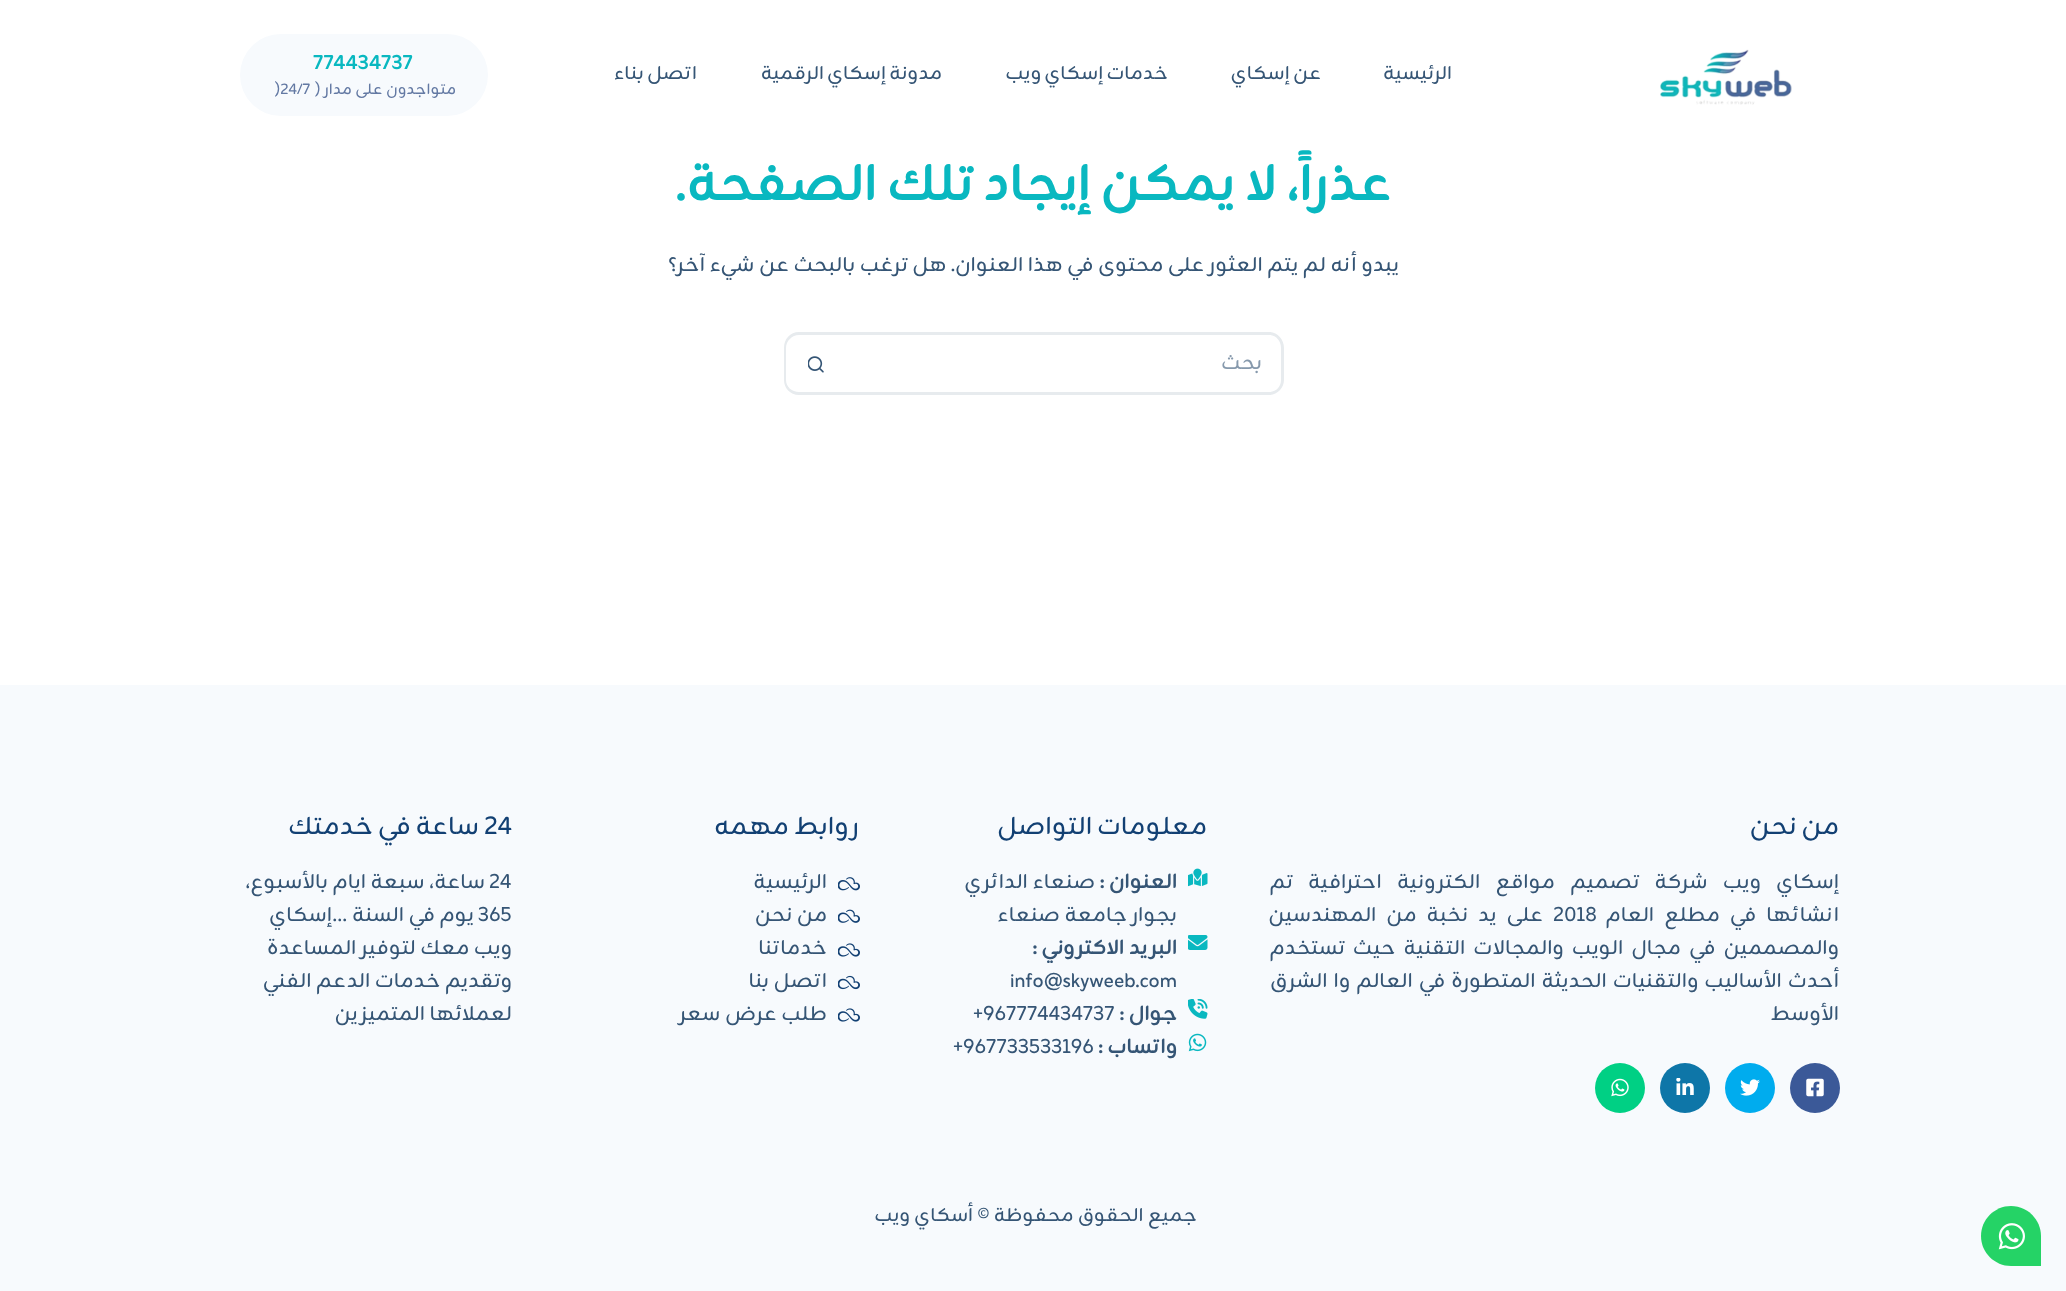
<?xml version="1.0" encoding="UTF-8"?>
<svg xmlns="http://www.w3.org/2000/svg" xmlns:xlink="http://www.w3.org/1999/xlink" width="2066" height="1291">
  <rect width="100%" height="100%" fill="#ffffff" />
  <image x="1660" y="49" width="132" height="56" xlink:href="image1.png" />
  <rect x="240" y="34" width="248" height="82" rx="41" fill="#f7fafd" />
  <path d="M 846 332 h 423 c 8 0 15 7 15 16 v 32 c 0 8 -7 15 -15 15 h -423 z m 0 3 h 423 c 7 0 12 6 12 13 v 32 c 0 7 -5 12 -12 12 h -423 z" fill="#e7ebee" fill-rule="evenodd" />
  <path d="M 799 332 h 47 v 63 h -47 c -9 0 -15 -7 -15 -15 v -32 c 0 -9 6 -16 15 -16 z m 0 3 h 47 v 57 h -47 c -7 0 -13 -5 -13 -12 v -32 c 0 -7 6 -13 13 -13 z" fill="#e7ebee" fill-rule="evenodd" />
  <image x="808" y="356" width="16" height="17" xlink:href="image2.png" />
  <rect y="685" width="2066" height="606" fill="#f7fafd" />
  <circle cx="1815" cy="1088" r="25" fill="#3b5998" />
  <image x="1806" y="1078" width="18" height="19" xlink:href="image3.png" />
  <circle cx="1750" cy="1088" r="25" fill="#00acee" />
  <image x="1740" y="1079" width="20" height="17" xlink:href="image4.png" />
  <circle cx="1685" cy="1088" r="25" fill="#0e76a8" />
  <image x="1676" y="1078" width="18" height="17" xlink:href="image5.png" />
  <circle cx="1620" cy="1088" r="25" fill="#00d084" />
  <image x="1611" y="1078" width="18" height="19" xlink:href="image6.png" />
  <image x="1188" y="868" width="20" height="19" xlink:href="image7.png" />
  <image x="1188" y="935" width="20" height="15" xlink:href="image8.png" />
  <image x="1188" y="999" width="20" height="20" xlink:href="image9.png" />
  <image x="1188" y="1033" width="19" height="19" xlink:href="image10.png" />
  <image x="838" y="877" width="22" height="14" xlink:href="image11.png" />
  <image x="838" y="909" width="22" height="14" xlink:href="image12.png" />
  <image x="838" y="943" width="22" height="14" xlink:href="image13.png" />
  <image x="838" y="975" width="22" height="15" xlink:href="image14.png" />
  <image x="838" y="1008" width="22" height="14" xlink:href="image13.png" />
  <path d="M 2011 1206 c 16.5 0 30 13.5 30 30 v 30 h -30 c -16.5 0 -30 -13.5 -30 -30 c 0 -16.5 13.5 -30 30 -30 z" fill="#25d366" />
  <image x="1998" y="1223" width="27" height="27" xlink:href="image15.png" />
  <text x="1452" y="79" style="font-family: 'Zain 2'; font-size: 18.75px; direction: rtl; fill: #355575">الرئيسية</text>
  <text x="1321" y="79" word-spacing="-1" style="font-family: 'Zain 2'; font-size: 18.75px; direction: rtl; fill: #355575">عن إسكاي</text>
  <text x="1168" y="79" word-spacing="-1" style="font-family: 'Zain 2'; font-size: 18.75px; direction: rtl; fill: #355575">خدمات إسكاي ويب</text>
  <text x="942" y="79" word-spacing="-1" style="font-family: 'Zain 2'; font-size: 18.75px; direction: rtl; fill: #355575">مدونة إسكاي الرقمية</text>
  <text x="697" y="79" word-spacing="-1" style="font-family: 'Zain 2'; font-size: 18.75px; direction: rtl; fill: #355575">اتصل بناء</text>
  <text x="313" y="69" style="font-family: Zain; font-size: 20px; font-weight: bold; fill: #09b8c0">774434737</text>
  <text x="456" y="94" style="font-family: Zain; font-size: 15px; direction: rtl; fill: #6379a3">متواجدون على مدار (</text>
  <text x="274" y="94" style="font-family: Zain; font-size: 15px; fill: #6379a3">)24/7</text>
  <text x="1391" y="200" word-spacing="-1.5" style="font-family: 'Zain 2'; font-size: 50px; font-weight: bold; direction: rtl; fill: #09b8c0">عذراً، لا يمكن إيجاد تلك الصفحة</text>
  <text x="687" y="200" style="font-family: Zain; font-size: 50px; font-weight: bold; direction: rtl; fill: #09b8c0">.</text>
  <text x="1399" y="271" style="font-family: Zain; font-size: 20px; direction: rtl; fill: #355575">يبدو أنه لم يتم العثور على محتوى في هذا العنوان. هل ترغب بالبحث عن شيء آخر؟</text>
  <text x="1262" y="369" style="font-family: Zain; font-size: 20px; direction: rtl; fill: #8699ac">بحث</text>
  <text x="1839" y="834" word-spacing="-1" style="font-family: 'Zain 2'; font-size: 25px; direction: rtl; fill: #124073">من نحن</text>
  <text x="1839" y="888" word-spacing="10.75" style="font-family: Zain; font-size: 20px; direction: rtl; fill: #355575">إسكاي ويب شركة تصميم مواقع الكترونية احترافية تم</text>
  <text x="1839" y="921" word-spacing="5.5" style="font-family: Zain; font-size: 20px; direction: rtl; fill: #355575">انشائها في مطلع العام</text>
  <text x="1553" y="921" style="font-family: Zain; font-size: 20px; fill: #355575">2018</text>
  <text x="1543" y="921" word-spacing="5.5" style="font-family: Zain; font-size: 20px; direction: rtl; fill: #355575">على يد نخبة من المهندسين</text>
  <text x="1839" y="954" word-spacing="3.5" style="font-family: Zain; font-size: 20px; direction: rtl; fill: #355575">والمصممين في مجال الويب والمجالات التقنية حيث تستخدم</text>
  <text x="1839" y="987" word-spacing="1.5" style="font-family: Zain; font-size: 20px; direction: rtl; fill: #355575">أحدث الأساليب والتقنيات الحديثة المتطورة في العالم وا الشرق</text>
  <text x="1839" y="1020" style="font-family: Zain; font-size: 20px; direction: rtl; fill: #355575">الأوسط</text>
  <text x="1207" y="834" word-spacing="-1" style="font-family: 'Zain 2'; font-size: 25px; direction: rtl; fill: #124073">معلومات التواصل</text>
  <text x="1177" y="888" style="font-family: 'Zain 2'; font-size: 20px; font-weight: bold; direction: rtl; fill: #355575">العنوان :</text>
  <text x="1095" y="888" style="font-family: Zain; font-size: 20px; direction: rtl; fill: #355575">صنعاء الدائري</text>
  <text x="1177" y="921" style="font-family: Zain; font-size: 20px; direction: rtl; fill: #355575">بجوار جامعة صنعاء</text>
  <text x="1177" y="954" style="font-family: 'Zain 2'; font-size: 20px; font-weight: bold; direction: rtl; fill: #355575">البريد الاكتروني :</text>
  <text x="1010" y="987" style="font-family: Zain; font-size: 20px; fill: #355575">info@skyweeb.com</text>
  <text x="1177" y="1020" style="font-family: 'Zain 2'; font-size: 20px; font-weight: bold; direction: rtl; fill: #355575">جوال :</text>
  <text x="973" y="1020" style="font-family: Zain; font-size: 20px; fill: #355575">+967774434737</text>
  <text x="1177" y="1053" style="font-family: 'Zain 2'; font-size: 20px; font-weight: bold; direction: rtl; fill: #355575">واتساب :</text>
  <text x="953" y="1053" style="font-family: Zain; font-size: 20px; fill: #355575">+967733533196</text>
  <text x="859" y="834" word-spacing="-1" style="font-family: 'Zain 2'; font-size: 25px; direction: rtl; fill: #124073">روابط مهمه</text>
  <text x="827" y="888" style="font-family: Zain; font-size: 20px; direction: rtl; fill: #355575">الرئيسية</text>
  <text x="827" y="921" style="font-family: Zain; font-size: 20px; direction: rtl; fill: #355575">من نحن</text>
  <text x="827" y="954" style="font-family: Zain; font-size: 20px; direction: rtl; fill: #355575">خدماتنا</text>
  <text x="827" y="987" style="font-family: Zain; font-size: 20px; direction: rtl; fill: #355575">اتصل بنا</text>
  <text x="827" y="1020" style="font-family: Zain; font-size: 20px; direction: rtl; fill: #355575">طلب عرض سعر</text>
  <text x="484" y="834" style="font-family: 'Zain 2'; font-size: 25px; fill: #124073">٢٤</text>
  <text x="479" y="834" word-spacing="-1" style="font-family: 'Zain 2'; font-size: 25px; direction: rtl; fill: #124073">ساعة في خدمتك</text>
  <text x="489" y="888" style="font-family: Zain; font-size: 20px; fill: #355575">٢٤</text>
  <text x="485" y="888" style="font-family: Zain; font-size: 20px; direction: rtl; fill: #355575">ساعة، سبعة ايام بالأسبوع،</text>
  <text x="478" y="921" style="font-family: Zain; font-size: 20px; fill: #355575">٣٦٥</text>
  <text x="474" y="921" style="font-family: Zain; font-size: 20px; direction: rtl; fill: #355575">يوم في السنة …إسكاي</text>
  <text x="512" y="954" style="font-family: Zain; font-size: 20px; direction: rtl; fill: #355575">ويب معك لتوفير المساعدة</text>
  <text x="512" y="987" style="font-family: Zain; font-size: 20px; direction: rtl; fill: #355575">وتقديم خدمات الدعم الفني</text>
  <text x="512" y="1020" style="font-family: Zain; font-size: 20px; direction: rtl; fill: #355575">لعملائها المتميزين</text>
  <text x="1197" y="1221" style="font-family: Zain; font-size: 18.75px; direction: rtl; fill: #355575">جميع الحقوق محفوظة ©</text>
  <text x="973" y="1221" style="font-family: Zain; font-size: 18.75px; direction: rtl; fill: #355575">أسكاي ويب</text>
</svg>
